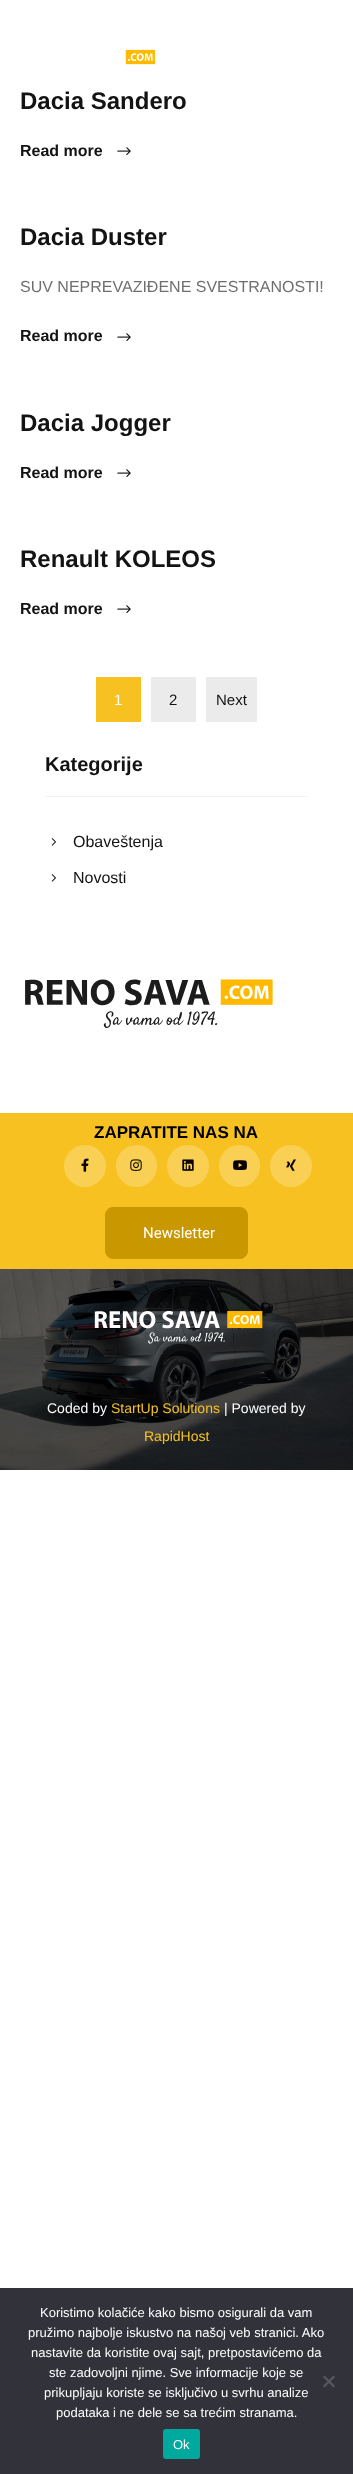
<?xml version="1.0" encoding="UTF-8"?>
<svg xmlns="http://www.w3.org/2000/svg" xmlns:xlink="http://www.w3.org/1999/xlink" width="353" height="2474">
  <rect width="100%" height="100%" fill="#ffffff" />
  <image x="125" y="49" width="30" height="16" xlink:href="image1.png" />
  <image x="117" y="147" width="14" height="8" xlink:href="image2.png" />
  <image x="117" y="333" width="14" height="8" xlink:href="image2.png" />
  <image x="117" y="469" width="14" height="8" xlink:href="image2.png" />
  <image x="117" y="605" width="14" height="8" xlink:href="image2.png" />
  <rect x="96" y="677" width="45" height="45" fill="#f7c221" />
  <rect x="151" y="677" width="45" height="45" fill="#ebebeb" />
  <rect x="206" y="677" width="51" height="45" fill="#ebebeb" />
  <rect x="45" y="796" width="263" height="1" fill="#f3f3f3" />
  <image x="51" y="838" width="5" height="8" xlink:href="image3.png" />
  <image x="51" y="874" width="5" height="8" xlink:href="image3.png" />
  <image x="25" y="979" width="248" height="49" xlink:href="image4.png" />
  <rect y="1113" width="353" height="156" fill="#f7c221" />
  <circle cx="85" cy="1166" r="21" fill="#f9d054" />
  <image x="81" y="1158" width="8" height="14" xlink:href="image5.png" />
  <rect x="116" y="1145" width="41" height="42" rx="20.5" fill="#f9d054" />
  <image x="130" y="1159" width="12" height="12" xlink:href="image6.png" />
  <circle cx="188" cy="1166" r="21" fill="#f9d054" />
  <image x="182" y="1159" width="12" height="12" xlink:href="image7.png" />
  <rect x="219" y="1145" width="41" height="42" rx="20.5" fill="#f9d054" />
  <image x="233" y="1160" width="14" height="10" xlink:href="image8.png" />
  <circle cx="291" cy="1166" r="21" fill="#f9d054" />
  <image x="286" y="1159" width="10" height="12" xlink:href="image9.png" />
  <rect x="105.5" y="1207.5" width="142" height="51" rx="7.5" fill="#c99700" stroke="#c99700" />
  <image x="0" y="1269" width="353" height="201" xlink:href="image10.png" />
  <image x="94" y="1311" width="169" height="33" xlink:href="image11.png" />
  <rect y="2288" width="353" height="186" fill="#32323a" />
  <path d="M 333.5 2375.5 l 1.5 1.5 l -10.5 10.5 l -1.5 -1.5 z" fill="#59595d" />
  <path d="M 323 2377 l 1.5 -1.5 l 10.5 10.5 l -1.5 1.5 z" fill="#59595d" />
  <rect x="163" y="2429" width="37" height="30" rx="3" fill="#00a99d" />
  <text x="20" y="109" style="font-family: Liberation Sans; font-size: 24px; font-weight: bold; fill: #131313">Dacia Sandero</text>
  <text x="20" y="156" style="font-family: Liberation Sans; font-size: 16px; font-weight: bold; fill: #131313">Read more</text>
  <text x="20" y="245" style="font-family: Liberation Sans; font-size: 24px; font-weight: bold; fill: #131313">Dacia Duster</text>
  <text x="20" y="292" style="font-family: Liberation Sans; font-size: 16px; fill: #6f6f6f">SUV NEPREVAZIĐENE SVESTRANOSTI!</text>
  <text x="20" y="341" style="font-family: Liberation Sans; font-size: 16px; font-weight: bold; fill: #131313">Read more</text>
  <text x="20" y="431" style="font-family: Liberation Sans; font-size: 24px; font-weight: bold; fill: #131313">Dacia Jogger</text>
  <text x="20" y="478" style="font-family: Liberation Sans; font-size: 16px; font-weight: bold; fill: #131313">Read more</text>
  <text x="20" y="567" style="font-family: Liberation Sans; font-size: 24px; font-weight: bold; fill: #131313">Renault KOLEOS</text>
  <text x="20" y="614" style="font-family: Liberation Sans; font-size: 16px; font-weight: bold; fill: #131313">Read more</text>
  <text x="114" y="705" style="font-family: Liberation Sans; font-size: 15px; fill: #ffffff">1</text>
  <text x="169" y="705" style="font-family: Liberation Sans; font-size: 15px; fill: #131313">2</text>
  <text x="216" y="705" style="font-family: Liberation Sans; font-size: 15px; fill: #131313">Next</text>
  <text x="45" y="771" style="font-family: Liberation Sans; font-size: 20px; font-weight: bold; fill: #131313">Kategorije</text>
  <text x="73" y="847" style="font-family: Liberation Sans; font-size: 16px; fill: #131313">Obaveštenja</text>
  <text x="73" y="883" style="font-family: Liberation Sans; font-size: 16px; fill: #131313">Novosti</text>
  <text x="94" y="1138" style="font-family: Liberation Sans; font-size: 17px; font-weight: bold; fill: #000000">ZAPRATITE NAS NA</text>
  <text x="143" y="1238" style="font-family: Heebo; font-size: 15px; fill: #ffffff">Newsletter</text>
  <text x="47" y="1413" style="font-family: Liberation Sans; font-size: 14px; fill: #ffffff">Coded by</text>
  <text x="111" y="1413" style="font-family: Liberation Sans; font-size: 14px; fill: #f7c221">StartUp Solutions</text>
  <text x="224" y="1413" style="font-family: Liberation Sans; font-size: 14px; fill: #ffffff">| Powered by</text>
  <text x="144" y="1441" style="font-family: Liberation Sans; font-size: 14px; fill: #f7c221">RapidHost</text>
  <text x="40" y="2317" style="font-family: Liberation Sans; font-size: 13px; fill: #ffffff">Koristimo kolačiće kako bismo osigurali da vam</text>
  <text x="28" y="2337" style="font-family: Liberation Sans; font-size: 13px; fill: #ffffff">pružimo najbolje iskustvo na našoj veb stranici. Ako</text>
  <text x="31" y="2357" style="font-family: Liberation Sans; font-size: 13px; fill: #ffffff">nastavite da koristite ovaj sajt, pretpostavićemo da</text>
  <text x="49" y="2377" style="font-family: Liberation Sans; font-size: 13px; fill: #ffffff">ste zadovoljni njime. Sve informacije koje se</text>
  <text x="44" y="2397" style="font-family: Liberation Sans; font-size: 13px; fill: #ffffff">prikupljaju koriste se isključivo u svrhu analize</text>
  <text x="56" y="2417" style="font-family: Liberation Sans; font-size: 13px; fill: #ffffff">podataka i ne dele se sa trećim stranama.</text>
  <text x="173" y="2449" style="font-family: Liberation Sans; font-size: 13px; fill: #ffffff">Ok</text>
</svg>
